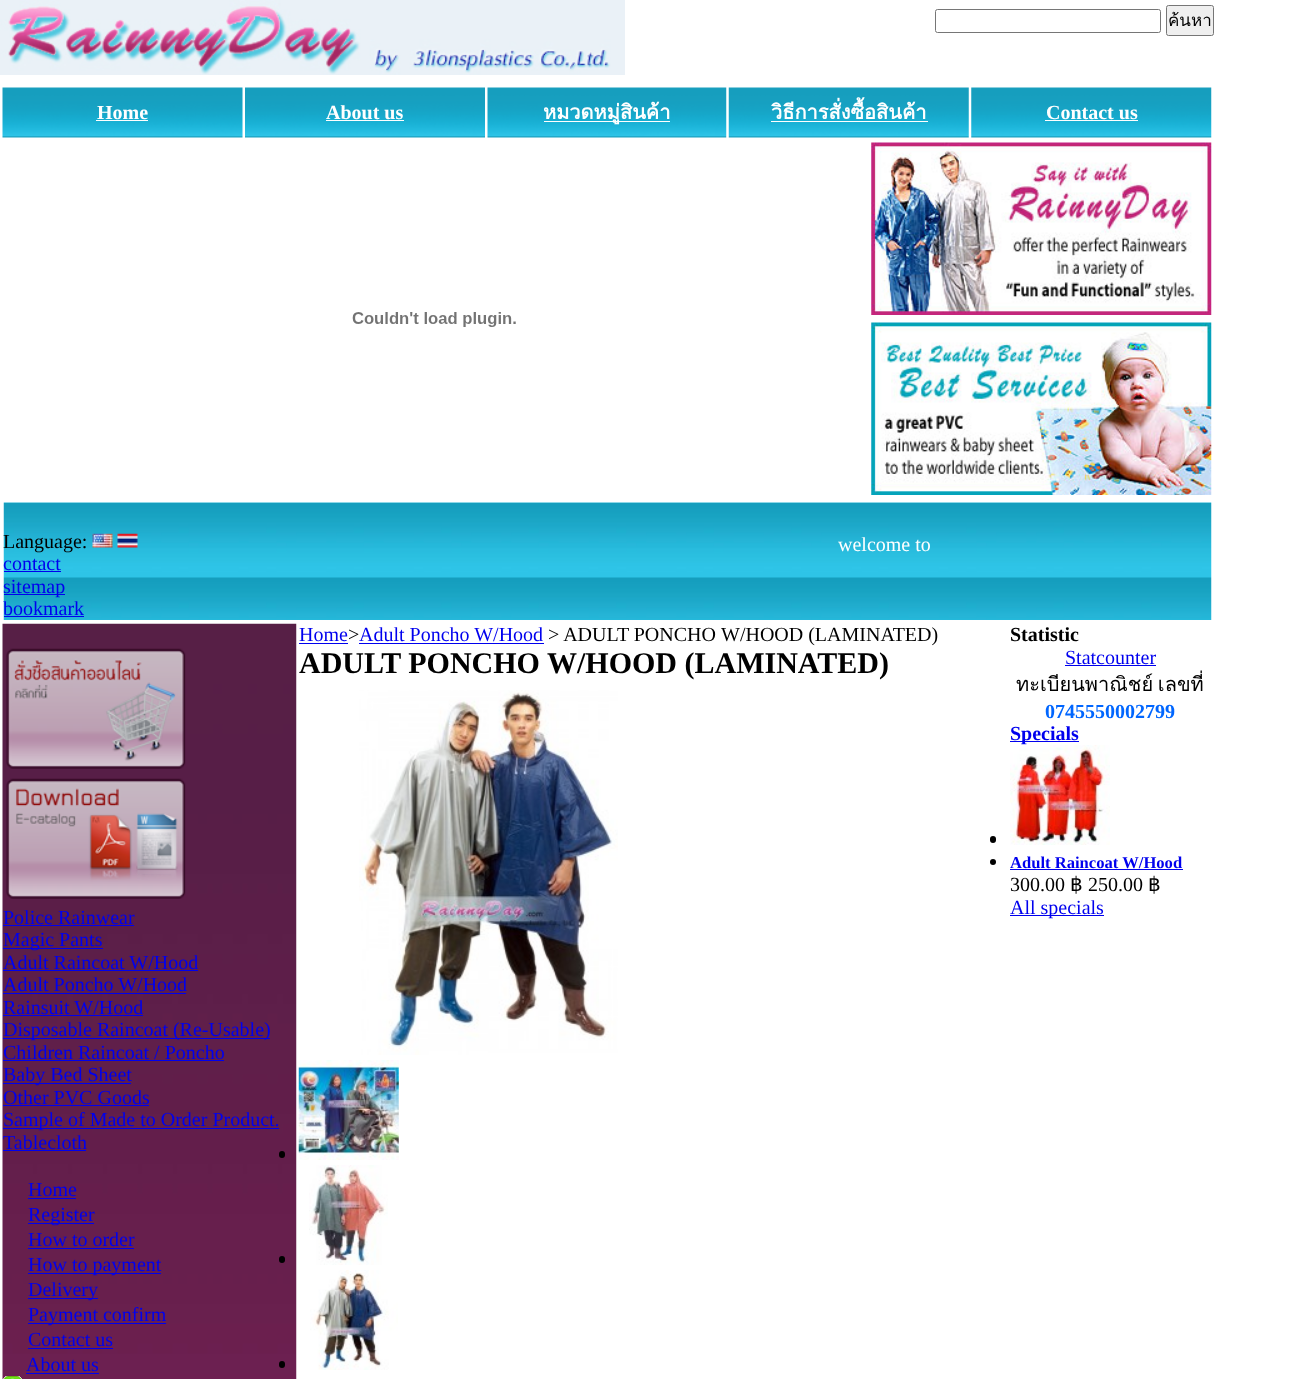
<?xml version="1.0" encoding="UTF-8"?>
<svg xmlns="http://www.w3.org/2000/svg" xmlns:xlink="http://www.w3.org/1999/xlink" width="1294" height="1379">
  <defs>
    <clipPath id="clip1"><rect x="1169" y="8" width="42" height="26" /></clipPath>
  </defs>
  <rect width="100%" height="100%" fill="#ffffff" />
  <image x="0" y="0" width="625" height="75" xlink:href="image1.png" />
  <rect x="935.5" y="9.5" width="225" height="23" rx="2" fill="none" stroke="#767676" />
  <rect x="1166.5" y="5.5" width="47" height="30" rx="2" fill="#efefef" stroke="#767676" />
  <image x="2" y="87" width="241" height="51" xlink:href="image2.png" />
  <rect x="96" y="120" width="52" height="1" fill="#ffffff" />
  <image x="245" y="87" width="240" height="51" xlink:href="image3.png" />
  <rect x="326" y="120" width="78" height="1" fill="#ffffff" />
  <image x="487" y="87" width="240" height="51" xlink:href="image4.png" />
  <rect x="544" y="121" width="126" height="1" fill="#ffffff" />
  <image x="728" y="87" width="241" height="51" xlink:href="image5.png" />
  <rect x="771" y="121" width="157" height="1" fill="#ffffff" />
  <image x="971" y="87" width="241" height="51" xlink:href="image6.png" />
  <rect x="1045" y="120" width="93" height="1" fill="#ffffff" />
  <image x="871" y="142" width="341" height="173" xlink:href="image7.png" />
  <image x="352" y="312" width="164" height="15" xlink:href="image8.png" />
  <image x="871" y="322" width="341" height="173" xlink:href="image9.png" />
  <image x="3" y="502" width="1209" height="118" xlink:href="image10.png" />
  <image x="92" y="533" width="21" height="15" xlink:href="image11.png" />
  <image x="117" y="533" width="21" height="15" xlink:href="image12.png" />
  <rect x="4" y="571" width="57" height="1" fill="#0000ee" />
  <rect x="4" y="594" width="61" height="1" fill="#0000ee" />
  <rect x="4" y="616" width="80" height="1" fill="#0000ee" />
  <rect x="299" y="643" width="49" height="1" fill="#0000ee" />
  <rect x="359" y="643" width="185" height="1" fill="#0000ee" />
  <image x="359" y="690" width="259" height="365" xlink:href="image13.png" />
  <image x="2" y="623" width="295" height="756" xlink:href="image18.png" />
  <rect x="279" y="1151" width="6" height="7" rx="3" fill="#000000" />
  <image x="298" y="1060" width="101" height="100" xlink:href="image14.png" />
  <rect x="279" y="1256" width="6" height="7" rx="3" fill="#000000" />
  <image x="309" y="1165" width="79" height="100" xlink:href="image15.png" />
  <rect x="279" y="1361" width="6" height="7" rx="3" fill="#000000" />
  <image x="310" y="1270" width="88" height="100" xlink:href="image16.png" />
  <rect x="1065" y="665" width="91" height="1" fill="#0000ee" />
  <rect x="1010" y="741" width="69" height="1" fill="#0000ee" />
  <rect x="990" y="836" width="6" height="7" rx="3" fill="#000000" />
  <image x="1010" y="745" width="100" height="100" xlink:href="image17.png" />
  <circle cx="993" cy="862" r="3" fill="#000000" />
  <rect x="1010" y="869" width="173" height="1" fill="#0000ee" />
  <rect x="1010" y="915" width="94" height="1" fill="#0000ee" />
  <image x="6" y="648" width="180" height="121" xlink:href="image19.png" />
  <image x="6" y="778" width="180" height="121" xlink:href="image20.png" />
  <rect x="3" y="925" width="131" height="1" fill="#0000ee" />
  <rect x="3" y="948" width="100" height="1" fill="#0000ee" />
  <rect x="3" y="970" width="195" height="1" fill="#0000ee" />
  <rect x="3" y="993" width="183" height="1" fill="#0000ee" />
  <rect x="3" y="1015" width="140" height="1" fill="#0000ee" />
  <rect x="3" y="1038" width="267" height="1" fill="#0000ee" />
  <rect x="3" y="1060" width="221" height="1" fill="#0000ee" />
  <rect x="3" y="1083" width="128" height="1" fill="#0000ee" />
  <rect x="3" y="1105" width="146" height="1" fill="#0000ee" />
  <rect x="3" y="1128" width="276" height="1" fill="#0000ee" />
  <rect x="3" y="1150" width="83" height="1" fill="#0000ee" />
  <rect x="28" y="1198" width="48" height="1" fill="#0000ee" />
  <rect x="28" y="1223" width="66" height="1" fill="#0000ee" />
  <rect x="28" y="1248" width="106" height="1" fill="#0000ee" />
  <rect x="28" y="1273" width="133" height="1" fill="#0000ee" />
  <rect x="28" y="1298" width="70" height="1" fill="#0000ee" />
  <rect x="28" y="1323" width="138" height="1" fill="#0000ee" />
  <rect x="28" y="1348" width="85" height="1" fill="#0000ee" />
  <rect x="26" y="1373" width="73" height="1" fill="#0000ee" />
  <image x="3" y="1376" width="19" height="3" xlink:href="image21.png" />
  <g clip-path="url(#clip1)">
    <text x="1168" y="26" style="font-family: Loma; font-size: 17px; fill: #000000">ค้นหา</text>
  </g>
  <text x="97" y="119" style="font-family: Liberation Serif; font-size: 20px; font-weight: bold; fill: #ffffff">Home</text>
  <text x="326" y="119" style="font-family: Liberation Serif; font-size: 20px; font-weight: bold; fill: #ffffff">About us</text>
  <text x="543" y="119" style="font-family: Loma; font-size: 20px; font-weight: bold; fill: #ffffff">หมวดหมู่สินค้า</text>
  <text x="771" y="119" style="font-family: Loma; font-size: 20px; font-weight: bold; fill: #ffffff">วิธีการสั่งซื้อสินค้า</text>
  <text x="1046" y="119" style="font-family: Liberation Serif; font-size: 20px; font-weight: bold; fill: #ffffff">Contact us</text>
  <text x="3" y="548" style="font-family: Liberation Serif; font-size: 20px; fill: #000000">Language:</text>
  <text x="838" y="551" style="font-family: Liberation Serif; font-size: 20px; fill: #ffffff">welcome to</text>
  <text x="3" y="570" style="font-family: Liberation Serif; font-size: 20px; fill: #0000ee">contact</text>
  <text x="3" y="593" style="font-family: Liberation Serif; font-size: 20px; fill: #0000ee">sitemap</text>
  <text x="3" y="615" style="font-family: Liberation Serif; font-size: 20px; fill: #0000ee">bookmark</text>
  <text x="299" y="641" style="font-family: Liberation Serif; font-size: 20px; fill: #0000ee">Home</text>
  <text x="348" y="641" style="font-family: Liberation Serif; font-size: 20px; fill: #000000">&gt;</text>
  <text x="359" y="641" style="font-family: Liberation Serif; font-size: 20px; fill: #0000ee">Adult Poncho W/Hood</text>
  <text x="548" y="641" style="font-family: Liberation Serif; font-size: 20px; fill: #000000">&gt; ADULT PONCHO</text>
  <text x="721" y="641" style="font-family: Liberation Serif; font-size: 20px; fill: #000000">W/HOOD (LAMINATED)</text>
  <text x="299" y="673" style="font-family: Liberation Serif; font-size: 30px; font-weight: bold; fill: #000000">ADULT PONCHO</text>
  <text x="547" y="673" style="font-family: Liberation Serif; font-size: 30px; font-weight: bold; fill: #000000">W/HOOD (LAMINATED)</text>
  <text x="1010" y="641" style="font-family: Liberation Serif; font-size: 20px; font-weight: bold; fill: #000000">Statistic</text>
  <text x="1065" y="664" style="font-family: Liberation Serif; font-size: 20px; fill: #0000ee">Statcounter</text>
  <text x="1016" y="691" word-spacing="-2" style="font-family: Loma; font-size: 20px; fill: #000000">ทะเบียนพาณิชย์ เลขที่</text>
  <text x="1045" y="718" style="font-family: Liberation Serif; font-size: 20px; font-weight: bold; fill: #0066ff">0745550002799</text>
  <text x="1010" y="740" style="font-family: Liberation Serif; font-size: 20px; font-weight: bold; fill: #0000ee">Specials</text>
  <text x="1010" y="868" style="font-family: Liberation Serif; font-size: 16.6px; font-weight: bold; fill: #0000ee">Adult Raincoat W/Hood</text>
  <text x="1010" y="891" style="font-family: Liberation Serif; font-size: 20px; fill: #000000">300.00</text>
  <text x="1070" y="891" style="font-family: DejaVu Sans; font-size: 20px; fill: #000000">฿</text>
  <text x="1088" y="891" style="font-family: Liberation Serif; font-size: 20px; fill: #000000">250.00</text>
  <text x="1148" y="891" style="font-family: DejaVu Sans; font-size: 20px; fill: #000000">฿</text>
  <text x="1010" y="914" style="font-family: Liberation Serif; font-size: 20px; fill: #0000ee">All specials</text>
  <text x="3" y="924" style="font-family: Liberation Serif; font-size: 20px; fill: #0000ee">Police Rainwear</text>
  <text x="3" y="946" style="font-family: Liberation Serif; font-size: 20px; fill: #0000ee">Magic Pants</text>
  <text x="3" y="969" style="font-family: Liberation Serif; font-size: 20px; fill: #0000ee">Adult Raincoat W/Hood</text>
  <text x="3" y="991" style="font-family: Liberation Serif; font-size: 20px; fill: #0000ee">Adult Poncho W/Hood</text>
  <text x="3" y="1014" style="font-family: Liberation Serif; font-size: 20px; fill: #0000ee">Rainsuit W/Hood</text>
  <text x="3" y="1036" style="font-family: Liberation Serif; font-size: 20px; fill: #0000ee">Disposable Raincoat (Re-Usable)</text>
  <text x="3" y="1059" style="font-family: Liberation Serif; font-size: 20px; fill: #0000ee">Children Raincoat / Poncho</text>
  <text x="3" y="1081" style="font-family: Liberation Serif; font-size: 20px; fill: #0000ee">Baby Bed Sheet</text>
  <text x="3" y="1104" style="font-family: Liberation Serif; font-size: 20px; fill: #0000ee">Other PVC Goods</text>
  <text x="3" y="1126" style="font-family: Liberation Serif; font-size: 20px; fill: #0000ee">Sample of Made to Order Product.</text>
  <text x="3" y="1149" style="font-family: Liberation Serif; font-size: 20px; fill: #0000ee">Tablecloth</text>
  <text x="28" y="1196" style="font-family: Liberation Serif; font-size: 20px; fill: #0000ee">Home</text>
  <text x="28" y="1221" style="font-family: Liberation Serif; font-size: 20px; fill: #0000ee">Register</text>
  <text x="28" y="1246" style="font-family: Liberation Serif; font-size: 20px; fill: #0000ee">How to order</text>
  <text x="28" y="1271" style="font-family: Liberation Serif; font-size: 20px; fill: #0000ee">How to payment</text>
  <text x="28" y="1296" style="font-family: Liberation Serif; font-size: 20px; fill: #0000ee">Delivery</text>
  <text x="28" y="1321" style="font-family: Liberation Serif; font-size: 20px; fill: #0000ee">Payment confirm</text>
  <text x="28" y="1346" style="font-family: Liberation Serif; font-size: 20px; fill: #0000ee">Contact us</text>
  <text x="26" y="1371" style="font-family: Liberation Serif; font-size: 20px; fill: #0000ee">About us</text>
</svg>
